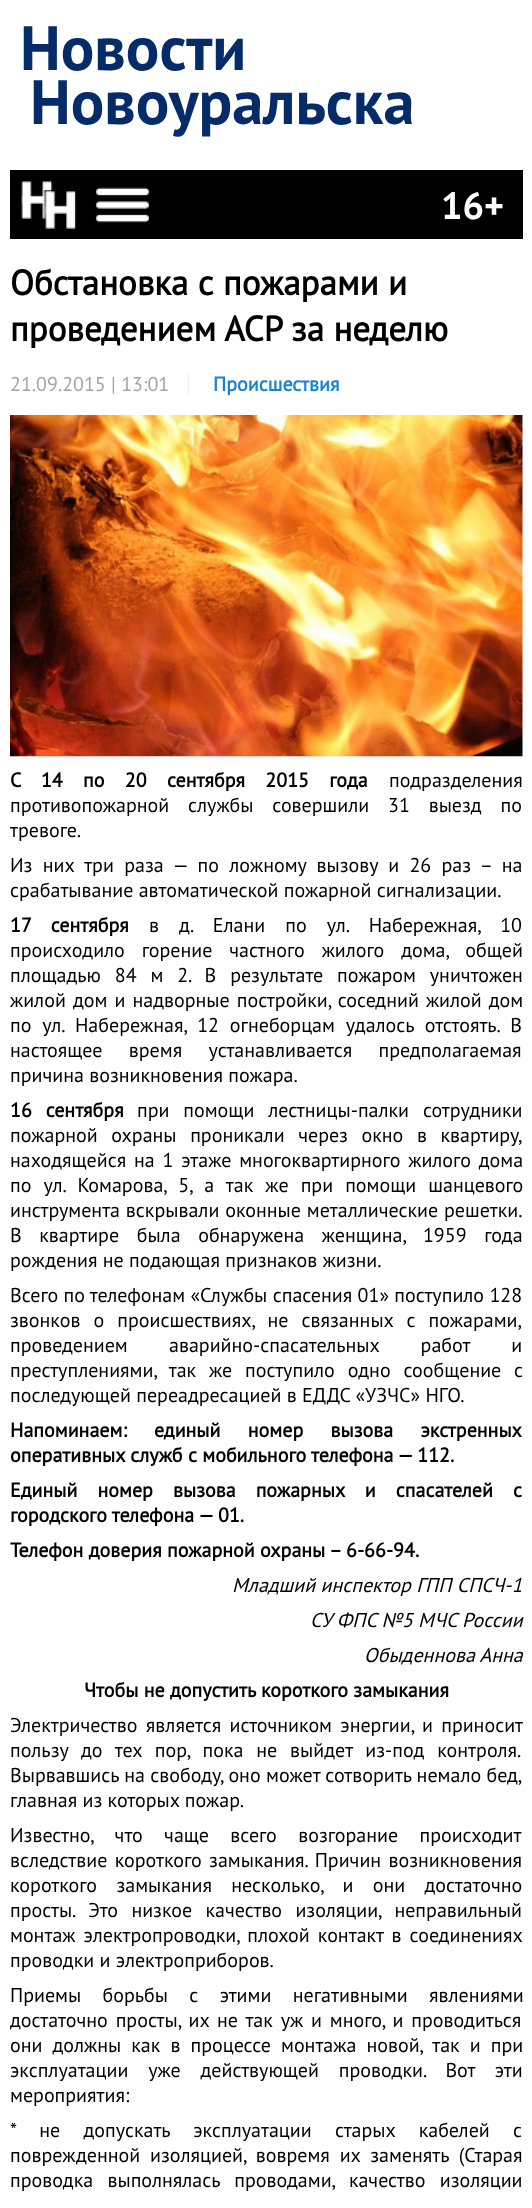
<?xml version="1.0" encoding="UTF-8"?>
<svg xmlns="http://www.w3.org/2000/svg" xmlns:xlink="http://www.w3.org/1999/xlink" width="532" height="2208">
  <rect width="100%" height="100%" fill="#ffffff" />
  <rect x="10" y="170" width="513" height="69" fill="#000000" />
  <image x="21" y="181" width="56" height="48" xlink:href="image1.png" />
  <image x="95" y="187" width="55" height="36" xlink:href="image2.png" />
  <rect x="188" y="371" width="1" height="25" fill="#f0f0f0" />
  <image x="10" y="415" width="513" height="342" xlink:href="image3.png" />
  <text x="20" y="70" style="font-family: PT Sans; font-size: 62.5px; font-weight: bold; fill: #052c69">Новости</text>
  <text x="30" y="124" style="font-family: PT Sans; font-size: 62.5px; font-weight: bold; fill: #052c69">Новоуральска</text>
  <text x="441" y="219" style="font-family: PT Sans; font-size: 38px; font-weight: bold; fill: #ffffff">16+</text>
  <text x="10" y="295" style="font-family: 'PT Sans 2'; font-size: 35px; font-weight: bold; fill: #000000">Обстановка с пожарами и</text>
  <text x="10" y="341" style="font-family: 'PT Sans 2'; font-size: 35px; font-weight: bold; fill: #000000">проведением АСР за неделю</text>
  <text x="10" y="391" style="font-family: PT Sans; font-size: 20px; fill: #a4a4a4">21.09.2015 | 13:01</text>
  <text x="213" y="391" style="font-family: 'PT Sans 2'; font-size: 20px; font-weight: bold; fill: #1982d1">Происшествия</text>
  <text x="10" y="787" word-spacing="15" style="font-family: 'PT Sans 2'; font-size: 20px; font-weight: bold; fill: #000000">С 14 по 20 сентября 2015 года</text>
  <text x="389" y="787" style="font-family: PT Sans; font-size: 20px; fill: #000000">подразделения</text>
  <text x="10" y="812" word-spacing="13.5" style="font-family: PT Sans; font-size: 20px; fill: #000000">противопожарной службы совершили 31 выезд по</text>
  <text x="10" y="837" style="font-family: PT Sans; font-size: 20px; fill: #000000">тревоге.</text>
  <text x="10" y="872" word-spacing="5" style="font-family: PT Sans; font-size: 20px; fill: #000000">Из них три раза — по ложному вызову и 26 раз – на</text>
  <text x="10" y="897" style="font-family: PT Sans; font-size: 20px; fill: #000000">срабатывание автоматической пожарной сигнализации.</text>
  <text x="10" y="932" word-spacing="14.75" style="font-family: 'PT Sans 2'; font-size: 20px; font-weight: bold; fill: #000000">17 сентября</text>
  <text x="149" y="932" word-spacing="14.75" style="font-family: PT Sans; font-size: 20px; fill: #000000">в д. Елани по ул. Набережная, 10</text>
  <text x="10" y="957" word-spacing="11.5" style="font-family: PT Sans; font-size: 20px; fill: #000000">происходило горение частного жилого дома, общей</text>
  <text x="10" y="982" word-spacing="8.5" style="font-family: PT Sans; font-size: 20px; fill: #000000">площадью 84 м 2. В результате пожаром уничтожен</text>
  <text x="10" y="1007" word-spacing="1.75" style="font-family: PT Sans; font-size: 20px; fill: #000000">жилой дом и надворные постройки, соседний жилой дом</text>
  <text x="10" y="1032" word-spacing="5.5" style="font-family: PT Sans; font-size: 20px; fill: #000000">по ул. Набережная, 12 огнеборцам удалось отстоять. В</text>
  <text x="10" y="1057" word-spacing="21" style="font-family: PT Sans; font-size: 20px; fill: #000000">настоящее время устанавливается предполагаемая</text>
  <text x="10" y="1082" style="font-family: PT Sans; font-size: 20px; fill: #000000">причина возникновения пожара.</text>
  <text x="10" y="1117" word-spacing="8.5" style="font-family: 'PT Sans 2'; font-size: 20px; font-weight: bold; fill: #000000">16 сентября</text>
  <text x="137" y="1117" word-spacing="8.5" style="font-family: PT Sans; font-size: 20px; fill: #000000">при помощи лестницы-палки сотрудники</text>
  <text x="10" y="1142" word-spacing="8.25" style="font-family: PT Sans; font-size: 20px; fill: #000000">пожарной охраны проникали через окно в квартиру,</text>
  <text x="10" y="1167" word-spacing="2.5" style="font-family: PT Sans; font-size: 20px; fill: #000000">находящейся на 1 этаже многоквартирного жилого дома</text>
  <text x="10" y="1192" word-spacing="6.75" style="font-family: PT Sans; font-size: 20px; fill: #000000">по ул. Комарова, 5, а так же при помощи шанцевого</text>
  <text x="10" y="1217" word-spacing="0.5" style="font-family: PT Sans; font-size: 20px; fill: #000000">инструмента вскрывали оконные металлические решетки.</text>
  <text x="10" y="1242" word-spacing="12.25" style="font-family: PT Sans; font-size: 20px; fill: #000000">В квартире была обнаружена женщина, 1959 года</text>
  <text x="10" y="1267" style="font-family: PT Sans; font-size: 20px; fill: #000000">рождения не подающая признаков жизни.</text>
  <text x="10" y="1302" style="font-family: PT Sans; font-size: 20px; fill: #000000">Всего по телефонам «Службы спасения 01» поступило 128</text>
  <text x="10" y="1327" word-spacing="7.75" style="font-family: PT Sans; font-size: 20px; fill: #000000">звонков о происшествиях, не связанных с пожарами,</text>
  <text x="10" y="1352" word-spacing="36" style="font-family: PT Sans; font-size: 20px; fill: #000000">проведением аварийно-спасательных работ и</text>
  <text x="10" y="1377" word-spacing="7.5" style="font-family: PT Sans; font-size: 20px; fill: #000000">преступлениями, так же поступило одно сообщение с</text>
  <text x="10" y="1402" style="font-family: PT Sans; font-size: 20px; fill: #000000">последующей переадресацией в ЕДДС «УЗЧС» НГО.</text>
  <text x="10" y="1437" word-spacing="22" style="font-family: 'PT Sans 2'; font-size: 20px; font-weight: bold; fill: #000000">Напоминаем: единый номер вызова экстренных</text>
  <text x="10" y="1462" style="font-family: 'PT Sans 2'; font-size: 20px; font-weight: bold; fill: #000000">оперативных служб с мобильного телефона — 112.</text>
  <text x="10" y="1497" word-spacing="14.75" style="font-family: 'PT Sans 2'; font-size: 20px; font-weight: bold; fill: #000000">Единый номер вызова пожарных и спасателей с</text>
  <text x="10" y="1522" style="font-family: 'PT Sans 2'; font-size: 20px; font-weight: bold; fill: #000000">городского телефона — 01.</text>
  <text x="10" y="1557" style="font-family: 'PT Sans 2'; font-size: 20px; font-weight: bold; fill: #000000">Телефон доверия пожарной охраны – 6-66-94.</text>
  <text x="232" y="1592" style="font-family: PT Sans; font-size: 20px; font-style: italic; fill: #000000">Младший инспектор ГПП СПСЧ-1</text>
  <text x="310" y="1627" style="font-family: PT Sans; font-size: 20px; font-style: italic; fill: #000000">СУ ФПС №5 МЧС России</text>
  <text x="364" y="1662" style="font-family: PT Sans; font-size: 20px; font-style: italic; fill: #000000">Обыденнова Анна</text>
  <text x="84" y="1697" style="font-family: 'PT Sans 2'; font-size: 20px; font-weight: bold; fill: #000000">Чтобы не допустить короткого замыкания</text>
  <text x="10" y="1732" word-spacing="3" style="font-family: PT Sans; font-size: 20px; fill: #000000">Электричество является источником энергии, и приносит</text>
  <text x="10" y="1757" word-spacing="7.5" style="font-family: PT Sans; font-size: 20px; fill: #000000">пользу до тех пор, пока не выйдет из-под контроля.</text>
  <text x="10" y="1782" style="font-family: PT Sans; font-size: 20px; fill: #000000">Вырвавшись на свободу, оно может сотворить немало бед,</text>
  <text x="10" y="1807" style="font-family: PT Sans; font-size: 20px; fill: #000000">главная из которых пожар.</text>
  <text x="10" y="1842" word-spacing="16" style="font-family: PT Sans; font-size: 20px; fill: #000000">Известно, что чаще всего возгорание происходит</text>
  <text x="10" y="1867" word-spacing="2" style="font-family: PT Sans; font-size: 20px; fill: #000000">вследствие короткого замыкания. Причин возникновения</text>
  <text x="10" y="1892" word-spacing="14" style="font-family: PT Sans; font-size: 20px; fill: #000000">короткого замыкания несколько, и они достаточно</text>
  <text x="10" y="1917" word-spacing="8" style="font-family: PT Sans; font-size: 20px; fill: #000000">просты. Это низкое качество изоляции, неправильный</text>
  <text x="10" y="1942" word-spacing="2.75" style="font-family: PT Sans; font-size: 20px; fill: #000000">монтаж электропроводки, плохой контакт в соединениях</text>
  <text x="10" y="1967" style="font-family: PT Sans; font-size: 20px; fill: #000000">проводки и электроприборов.</text>
  <text x="10" y="2002" word-spacing="16" style="font-family: PT Sans; font-size: 20px; fill: #000000">Приемы борьбы с этими негативными явлениями</text>
  <text x="10" y="2027" word-spacing="2.5" style="font-family: PT Sans; font-size: 20px; fill: #000000">достаточно просты, их не так уж и много, и проводиться</text>
  <text x="10" y="2052" word-spacing="4.75" style="font-family: PT Sans; font-size: 20px; fill: #000000">они должны как в процессе монтажа новой, так и при</text>
  <text x="10" y="2077" word-spacing="14.5" style="font-family: PT Sans; font-size: 20px; fill: #000000">эксплуатации уже действующей проводки. Вот эти</text>
  <text x="10" y="2102" style="font-family: PT Sans; font-size: 20px; fill: #000000">мероприятия:</text>
  <text x="10" y="2137" word-spacing="18" style="font-family: PT Sans; font-size: 20px; fill: #000000">* не допускать эксплуатации старых кабелей с</text>
  <text x="10" y="2162" word-spacing="4.5" style="font-family: PT Sans; font-size: 20px; fill: #000000">поврежденной изоляцией, вовремя их заменять (Старая</text>
  <text x="10" y="2187" word-spacing="9" style="font-family: PT Sans; font-size: 20px; fill: #000000">проводка выполнялась проводами, качество изоляции</text>
</svg>
